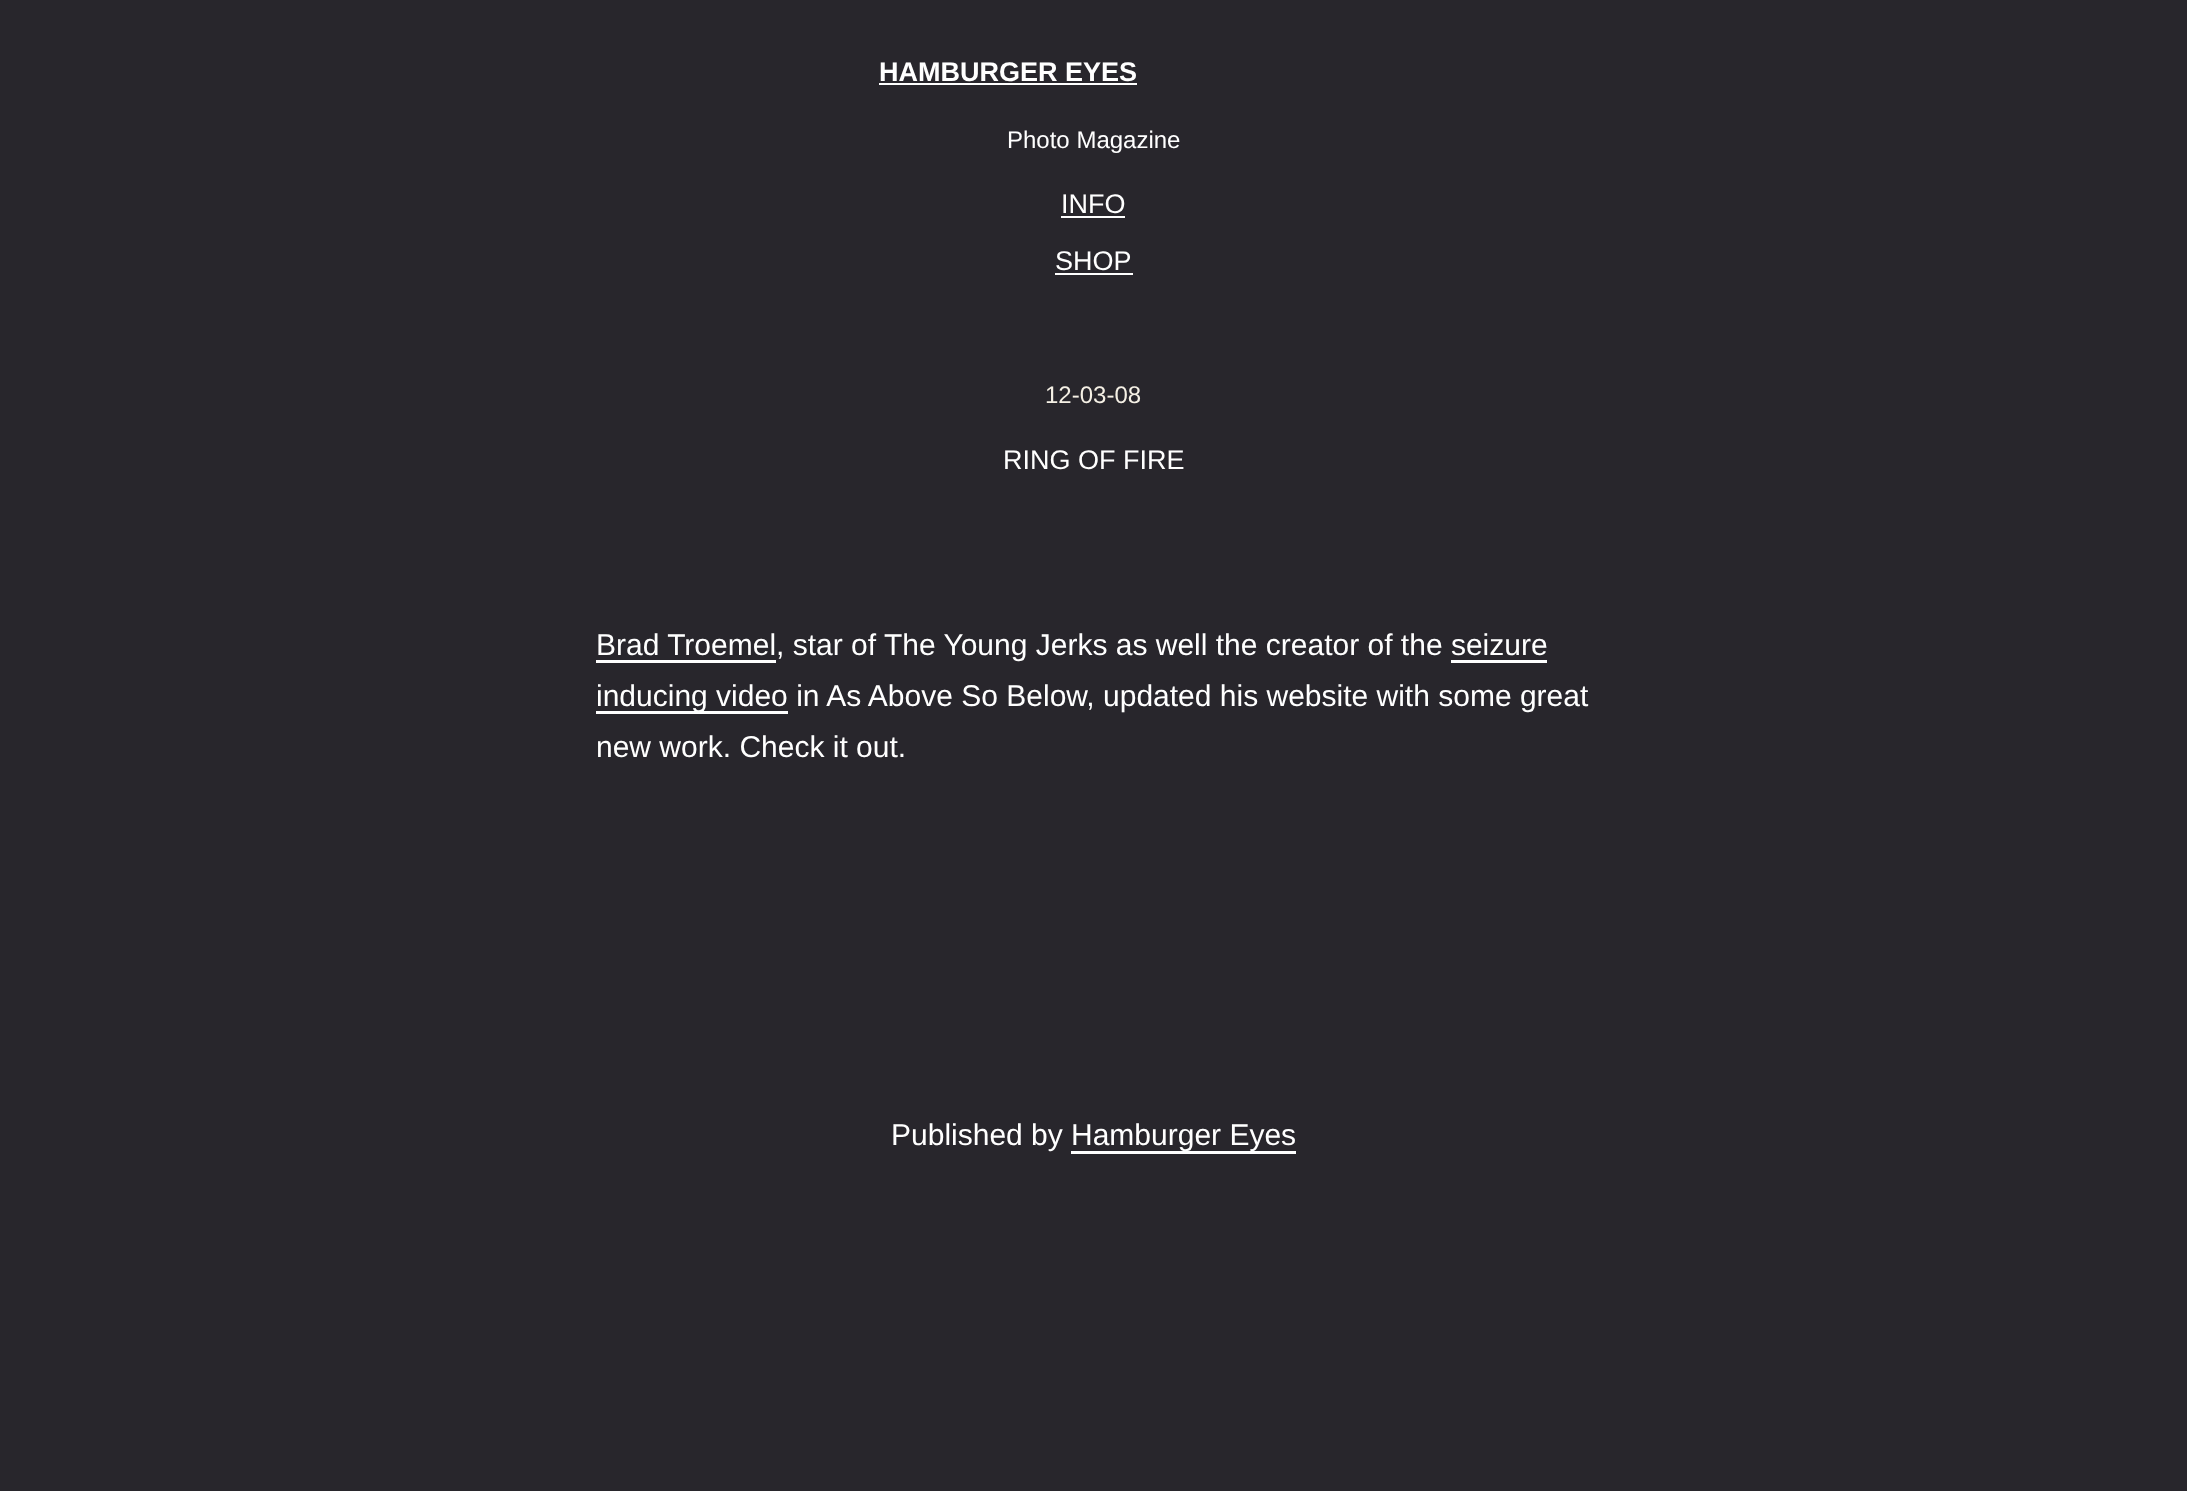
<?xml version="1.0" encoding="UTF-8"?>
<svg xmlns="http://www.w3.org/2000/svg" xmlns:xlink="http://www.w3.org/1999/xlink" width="2187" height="1491">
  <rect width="100%" height="100%" fill="#28262c" />
  <rect x="879" y="83" width="258" height="2" fill="#ffffff" />
  <rect x="1061" y="216" width="64" height="2" fill="#ffffff" />
  <rect x="1055" y="273" width="78" height="2" fill="#ffffff" />
  <rect x="596" y="660" width="180" height="3" fill="#ffffff" />
  <rect x="1451" y="660" width="96" height="3" fill="#ffffff" />
  <rect x="596" y="711" width="192" height="3" fill="#ffffff" />
  <rect x="1071" y="1151" width="225" height="3" fill="#ffffff" />
  <text x="879" y="81" style="font-family: Liberation Sans; font-size: 27px; font-weight: bold; fill: #ffffff">HAMBURGER EYES</text>
  <text x="1007" y="148" style="font-family: Liberation Sans; font-size: 24px; fill: #ffffff">Photo Magazine</text>
  <text x="1061" y="213" style="font-family: Liberation Sans; font-size: 27px; fill: #ffffff">INFO</text>
  <text x="1055" y="270" style="font-family: Liberation Sans; font-size: 27px; fill: #ffffff">SHOP</text>
  <text x="1045" y="403" style="font-family: Liberation Sans; font-size: 24px; fill: #f5f0e5">12-03-08</text>
  <text x="1003" y="469" style="font-family: Liberation Sans; font-size: 27px; fill: #ffffff">RING OF FIRE</text>
  <text x="596" y="655" style="font-family: Liberation Sans; font-size: 30px; fill: #ffffff">Brad Troemel, star of The Young Jerks as well the creator of the seizure</text>
  <text x="596" y="706" style="font-family: Liberation Sans; font-size: 30px; fill: #ffffff">inducing video in As Above So Below, updated his website with some great</text>
  <text x="596" y="757" style="font-family: Liberation Sans; font-size: 30px; fill: #ffffff">new work. Check it out.</text>
  <text x="891" y="1145" style="font-family: Liberation Sans; font-size: 30px; fill: #ffffff">Published by</text>
  <text x="1071" y="1145" style="font-family: Liberation Sans; font-size: 30px; fill: #ffffff">Hamburger Eyes</text>
</svg>
